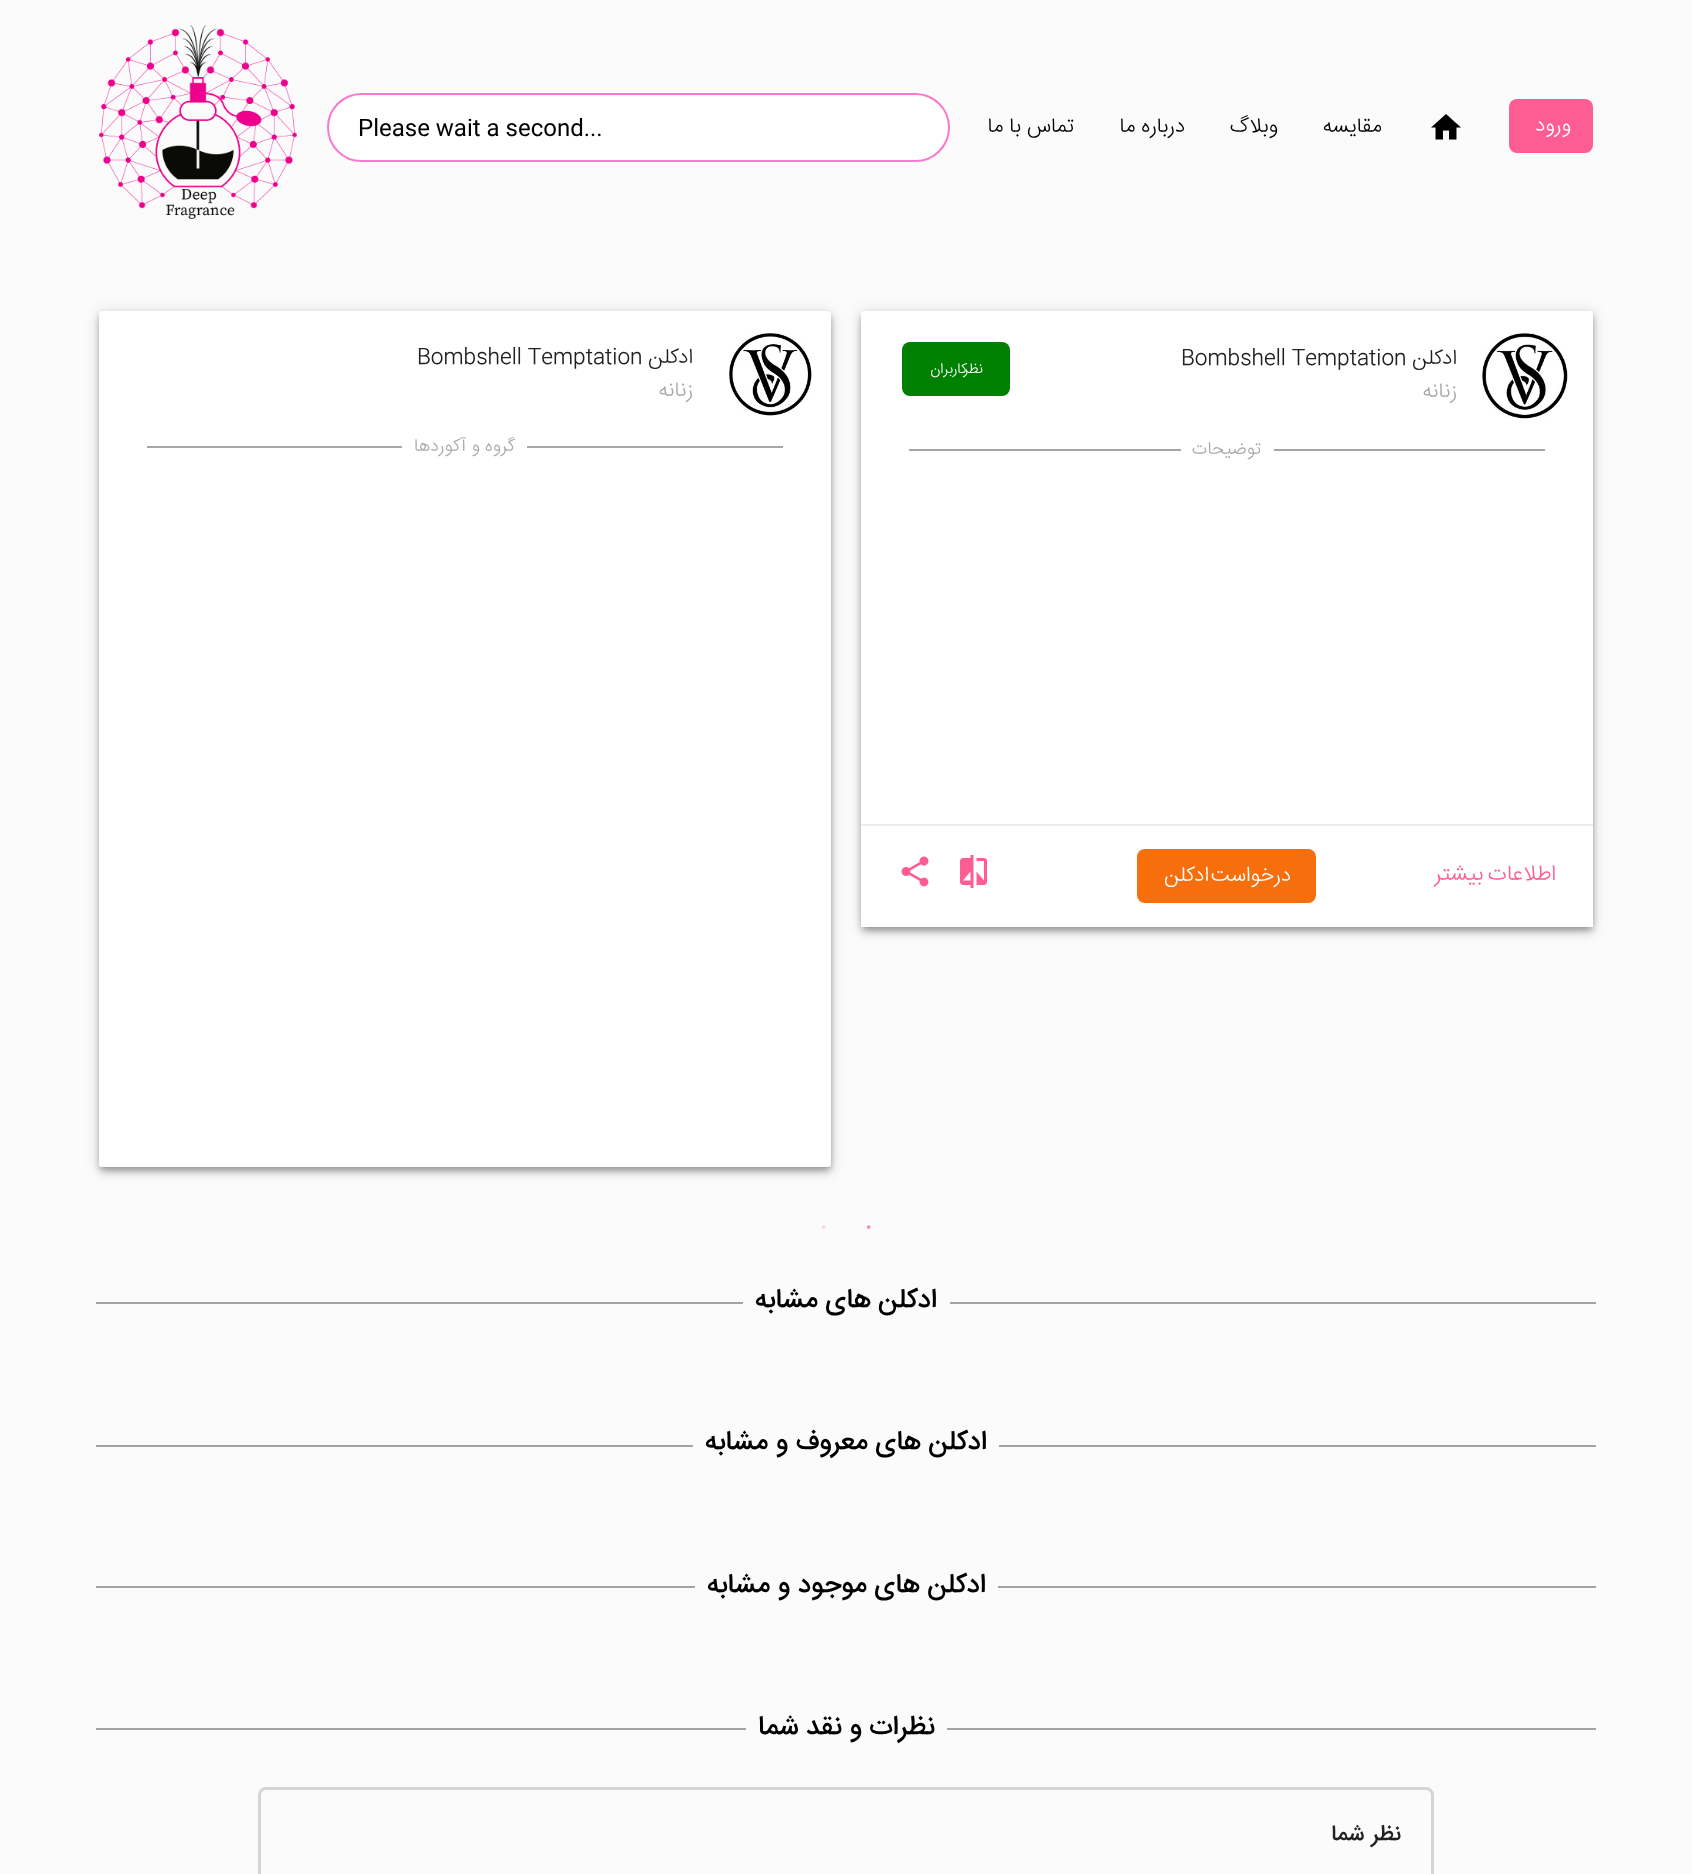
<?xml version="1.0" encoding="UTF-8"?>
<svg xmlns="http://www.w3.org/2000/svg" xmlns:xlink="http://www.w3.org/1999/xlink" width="1692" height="1874">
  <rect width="100%" height="100%" fill="#fbfbfb" />
  <rect x="1509" y="99" width="84" height="54" rx="8" fill="#fd5d93" />
  <image x="1431" y="114" width="30" height="26" xlink:href="image1.png" />
  <rect x="328" y="94" width="621" height="67" rx="33.5" fill="#ffffff" stroke="#f97acc" stroke-width="2" />
  <image x="99" y="25" width="198" height="194" xlink:href="image2.png" />
  <rect x="863" y="315" width="729" height="614" rx="1.5" fill="#000000" fill-opacity="0.3" filter="blur(3px)" />
  <rect x="861" y="312" width="732" height="617" rx="3" fill="#000000" fill-opacity="0.12" filter="blur(7.5px)" />
  <rect x="861" y="317" width="732" height="616" rx="3" fill="#000000" fill-opacity="0.14" filter="blur(4px)" />
  <rect x="861" y="311" width="732" height="616" rx="3" fill="#ffffff" />
  <image x="1482" y="333" width="86" height="86" xlink:href="image3.png" />
  <rect x="902" y="342" width="108" height="54" rx="8" fill="#008000" />
  <rect x="1274" y="449" width="271" height="2" fill="#a6a6a6" />
  <rect x="909" y="449" width="272" height="2" fill="#a6a6a6" />
  <rect x="861" y="924" width="732" height="3" fill="#ffffff" />
  <rect x="861" y="824" width="732" height="2" fill="#ececec" />
  <rect x="1137" y="849" width="179" height="54" rx="8" fill="#f76e0d" />
  <image x="960" y="855" width="27" height="33" xlink:href="image4.png" />
  <image x="901" y="856" width="28" height="31" xlink:href="image5.png" />
  <rect x="101" y="315" width="729" height="854" rx="1.5" fill="#000000" fill-opacity="0.3" filter="blur(3px)" />
  <rect x="99" y="312" width="732" height="857" rx="3" fill="#000000" fill-opacity="0.12" filter="blur(7.5px)" />
  <rect x="99" y="317" width="732" height="856" rx="3" fill="#000000" fill-opacity="0.14" filter="blur(4px)" />
  <rect x="99" y="311" width="732" height="856" rx="3" fill="#ffffff" />
  <image x="729" y="333" width="83" height="83" xlink:href="image6.png" />
  <rect x="527" y="446" width="256" height="2" fill="#a6a6a6" />
  <rect x="147" y="446" width="255" height="2" fill="#a6a6a6" />
  <rect x="950" y="1302" width="646" height="2" fill="#a3a3a3" />
  <rect x="96" y="1302" width="647" height="2" fill="#a3a3a3" />
  <rect x="999" y="1445" width="597" height="2" fill="#a3a3a3" />
  <rect x="96" y="1445" width="597" height="2" fill="#a3a3a3" />
  <rect x="998" y="1586" width="598" height="2" fill="#a3a3a3" />
  <rect x="96" y="1586" width="599" height="2" fill="#a3a3a3" />
  <rect x="947" y="1728" width="649" height="2" fill="#a3a3a3" />
  <rect x="96" y="1728" width="650" height="2" fill="#a3a3a3" />
  <rect x="259.5" y="1788.5" width="1173" height="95" rx="6.5" fill="none" stroke="#d6d4d4" stroke-width="3" />
  <text x="1571" y="131" style="font-family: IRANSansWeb; font-size: 21px; font-weight: 300; letter-spacing: 0.75px; direction: rtl; fill: #ffffff">ورود</text>
  <text x="1382" y="132" style="font-family: IRANSansWeb; font-size: 21px; font-weight: 300; direction: rtl; fill: #000000">مقایسه</text>
  <text x="1278" y="132" style="font-family: IRANSansWeb; font-size: 21px; font-weight: 300; direction: rtl; fill: #000000">وبلاگ</text>
  <text x="1185" y="132" style="font-family: IRANSansWeb; font-size: 21px; font-weight: 300; direction: rtl; fill: #000000">درباره ما</text>
  <text x="1074" y="132" style="font-family: IRANSansWeb; font-size: 21px; font-weight: 300; direction: rtl; fill: #000000">تماس با ما</text>
  <text x="358" y="136" style="font-family: Roboto; font-size: 24px; fill: #000000">Please wait a second...</text>
  <text x="1457" y="364" style="font-family: IRANSansWeb; font-size: 21px; font-weight: 300; direction: rtl; fill: #212121">ادکلن</text>
  <text x="1181" y="364" style="font-family: IRANSansWeb; font-size: 21px; font-weight: 300; fill: #212121">Bombshell Temptation</text>
  <text x="1457" y="397" style="font-family: IRANSansWeb; font-size: 21px; font-weight: 300; direction: rtl; fill: #a9a9a9">زنانه</text>
  <text x="983" y="373" style="font-family: IRANSansWeb; font-size: 14.5px; font-weight: 300; letter-spacing: 0.75px; direction: rtl; fill: #ffffff">نظر</text>
  <text x="967" y="373" style="font-family: IRANSansWeb; font-size: 14.5px; font-weight: 300; letter-spacing: 0.75px; direction: rtl; fill: #ffffff">کاربران</text>
  <text x="1261" y="454" style="font-family: IRANSansWeb; font-size: 18px; font-weight: 300; direction: rtl; fill: #a9a9a9">توضیحات</text>
  <text x="1556" y="880" style="font-family: IRANSansWeb; font-size: 22px; font-weight: 300; direction: rtl; fill: #fd5d93">اطلاعات</text>
  <text x="1483" y="880" style="font-family: IRANSansWeb; font-size: 22px; font-weight: 300; direction: rtl; fill: #fd5d93">بیشتر</text>
  <text x="1291" y="881" style="font-family: IRANSansWeb; font-size: 21px; font-weight: 300; letter-spacing: 0.75px; direction: rtl; fill: #ffffff">درخواست</text>
  <text x="1209" y="881" style="font-family: IRANSansWeb; font-size: 21px; font-weight: 300; letter-spacing: 0.75px; direction: rtl; fill: #ffffff">ادکلن</text>
  <text x="693" y="363" style="font-family: IRANSansWeb; font-size: 21px; font-weight: 300; direction: rtl; fill: #212121">ادکلن</text>
  <text x="417" y="363" style="font-family: IRANSansWeb; font-size: 21px; font-weight: 300; fill: #212121">Bombshell Temptation</text>
  <text x="693" y="396" style="font-family: IRANSansWeb; font-size: 21px; font-weight: 300; direction: rtl; fill: #a9a9a9">زنانه</text>
  <text x="515" y="451" style="font-family: IRANSansWeb; font-size: 18px; font-weight: 300; direction: rtl; fill: #a9a9a9">گروه و</text>
  <text x="466" y="451" style="font-family: IRANSansWeb; font-size: 18px; font-weight: 300; direction: rtl; fill: #a9a9a9">آکوردها</text>
  <text x="866" y="1232" style="font-family: Liberation Serif; font-size: 15px; fill: #fd85ad">•</text>
  <text x="821" y="1232" style="font-family: Liberation Serif; font-size: 15px; fill: #fcd4e1">•</text>
  <text x="937" y="1307" style="font-family: IRANSansWeb; font-size: 27px; font-weight: 500; direction: rtl; fill: #000000">ادکلن های مشابه</text>
  <text x="987" y="1449" style="font-family: IRANSansWeb; font-size: 27px; font-weight: 500; direction: rtl; fill: #000000">ادکلن</text>
  <text x="921" y="1449" style="font-family: IRANSansWeb; font-size: 27px; font-weight: 500; direction: rtl; fill: #000000">های معروف</text>
  <text x="788" y="1449" style="font-family: IRANSansWeb; font-size: 27px; font-weight: 500; direction: rtl; fill: #000000">و مشابه</text>
  <text x="986" y="1592" style="font-family: IRANSansWeb; font-size: 27px; font-weight: 500; direction: rtl; fill: #000000">ادکلن های موجود و مشابه</text>
  <text x="935" y="1734" style="font-family: IRANSansWeb; font-size: 27px; font-weight: 500; direction: rtl; fill: #000000">نظرات و نقد شما</text>
  <text x="1401" y="1840" style="font-family: IRANSansWeb; font-size: 22px; font-weight: 500; direction: rtl; fill: #212121">نظر</text>
  <text x="1364" y="1840" style="font-family: IRANSansWeb; font-size: 22px; font-weight: 500; direction: rtl; fill: #212121">شما</text>
</svg>
